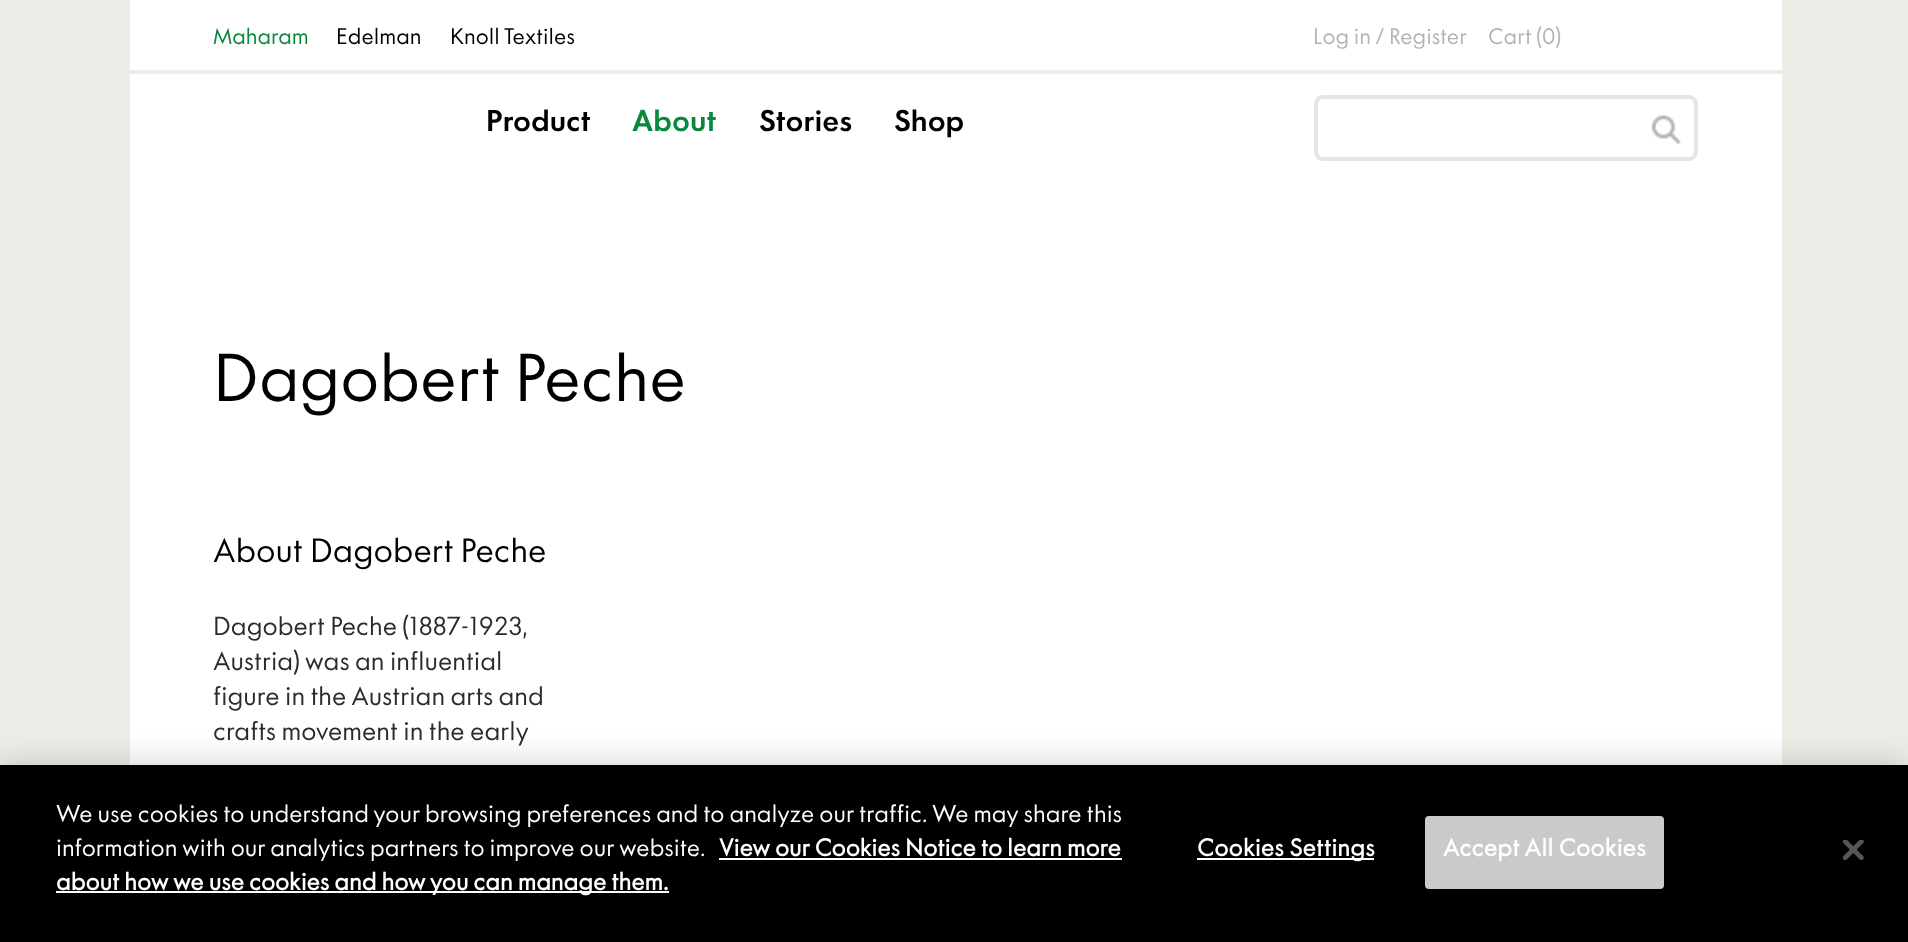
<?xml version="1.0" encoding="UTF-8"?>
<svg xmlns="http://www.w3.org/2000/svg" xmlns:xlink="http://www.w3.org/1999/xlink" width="1908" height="942">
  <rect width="100%" height="100%" fill="#edede8" />
  <rect x="130" width="1652" height="70" fill="#ffffff" />
  <rect x="130" y="74" width="1652" height="691" fill="#ffffff" />
  <rect x="1316" y="97" width="380" height="62" rx="7" fill="none" stroke="#e5e5e1" stroke-width="4" />
  <image x="1651" y="115" width="30" height="29" xlink:href="image1.png" />
  <rect y="765" width="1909" height="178" fill="#000000" fill-opacity="0.2" filter="blur(16px)" />
  <rect y="765" width="1908" height="177" fill="#000000" />
  <rect x="719" y="858" width="403" height="2" fill="#fefffe" />
  <rect x="56" y="891" width="613" height="2" fill="#fefffe" />
  <rect x="1197" y="858" width="177" height="2" fill="#fefffe" />
  <rect x="1426" y="817" width="237" height="71" rx="3" fill="#cacaca" stroke="#cacaca" stroke-width="2" />
  <image x="1843" y="840" width="21" height="21" xlink:href="image2.png" />
  <text x="213" y="44" style="font-family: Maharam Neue; font-size: 21px; fill: #07893e">Maharam</text>
  <text x="336" y="44" style="font-family: Maharam Neue; font-size: 21px; fill: #000000">Edelman</text>
  <text x="450" y="44" style="font-family: Maharam Neue; font-size: 21px; fill: #000000">Knoll Textiles</text>
  <text x="1313" y="44" style="font-family: Maharam Neue; font-size: 21px; fill: #b3b3af">Log in / Register</text>
  <text x="1488" y="44" style="font-family: Maharam Neue; font-size: 21px; fill: #b3b3af">Cart (0)</text>
  <text x="486" y="131" style="font-family: Maharam Neue; font-size: 28px; font-weight: 500; fill: #000000">Product</text>
  <text x="632" y="131" style="font-family: Maharam Neue; font-size: 28px; font-weight: 500; fill: #07893e">About</text>
  <text x="759" y="131" style="font-family: Maharam Neue; font-size: 28px; font-weight: 500; fill: #000000">Stories</text>
  <text x="894" y="131" style="font-family: Maharam Neue; font-size: 28px; font-weight: 500; fill: #000000">Shop</text>
  <text x="213" y="401" style="font-family: Maharam Neue; font-size: 63px; fill: #000000">Dagobert Peche</text>
  <text x="213" y="562" style="font-family: Maharam Neue; font-size: 31.5px; fill: #000000">About Dagobert Peche</text>
  <text x="213" y="635" style="font-family: Maharam Neue; font-size: 24.5px; fill: #292b2c">Dagobert Peche (1887-1923,</text>
  <text x="213" y="670" style="font-family: Maharam Neue; font-size: 24.5px; fill: #292b2c">Austria) was an influential</text>
  <text x="213" y="705" style="font-family: Maharam Neue; font-size: 24.5px; fill: #292b2c">figure in the Austrian arts and</text>
  <text x="213" y="740" style="font-family: Maharam Neue; font-size: 24.5px; fill: #292b2c">crafts movement in the early</text>
  <text x="56" y="822" style="font-family: Maharam Neue; font-size: 22.75px; fill: #fefffe">We use cookies to understand your browsing preferences and to analyze our traffic. We may share this</text>
  <text x="56" y="856" style="font-family: Maharam Neue; font-size: 22.75px; fill: #fefffe">information with our analytics partners to improve our website.</text>
  <text x="719" y="856" style="font-family: Maharam Neue; font-size: 22.75px; font-weight: bold; fill: #fefffe">View our Cookies Notice to learn more</text>
  <text x="56" y="890" style="font-family: Maharam Neue; font-size: 22.75px; font-weight: bold; fill: #fefffe">about how we use cookies and how you can manage them.</text>
  <text x="1197" y="856" style="font-family: Maharam Neue; font-size: 22.75px; font-weight: bold; letter-spacing: 0.25px; fill: #fefffe">Cookies Settings</text>
  <text x="1443" y="856" style="font-family: Maharam Neue; font-size: 22.75px; font-weight: bold; letter-spacing: 0.25px; fill: #fefffe">Accept All Cookies</text>
</svg>
